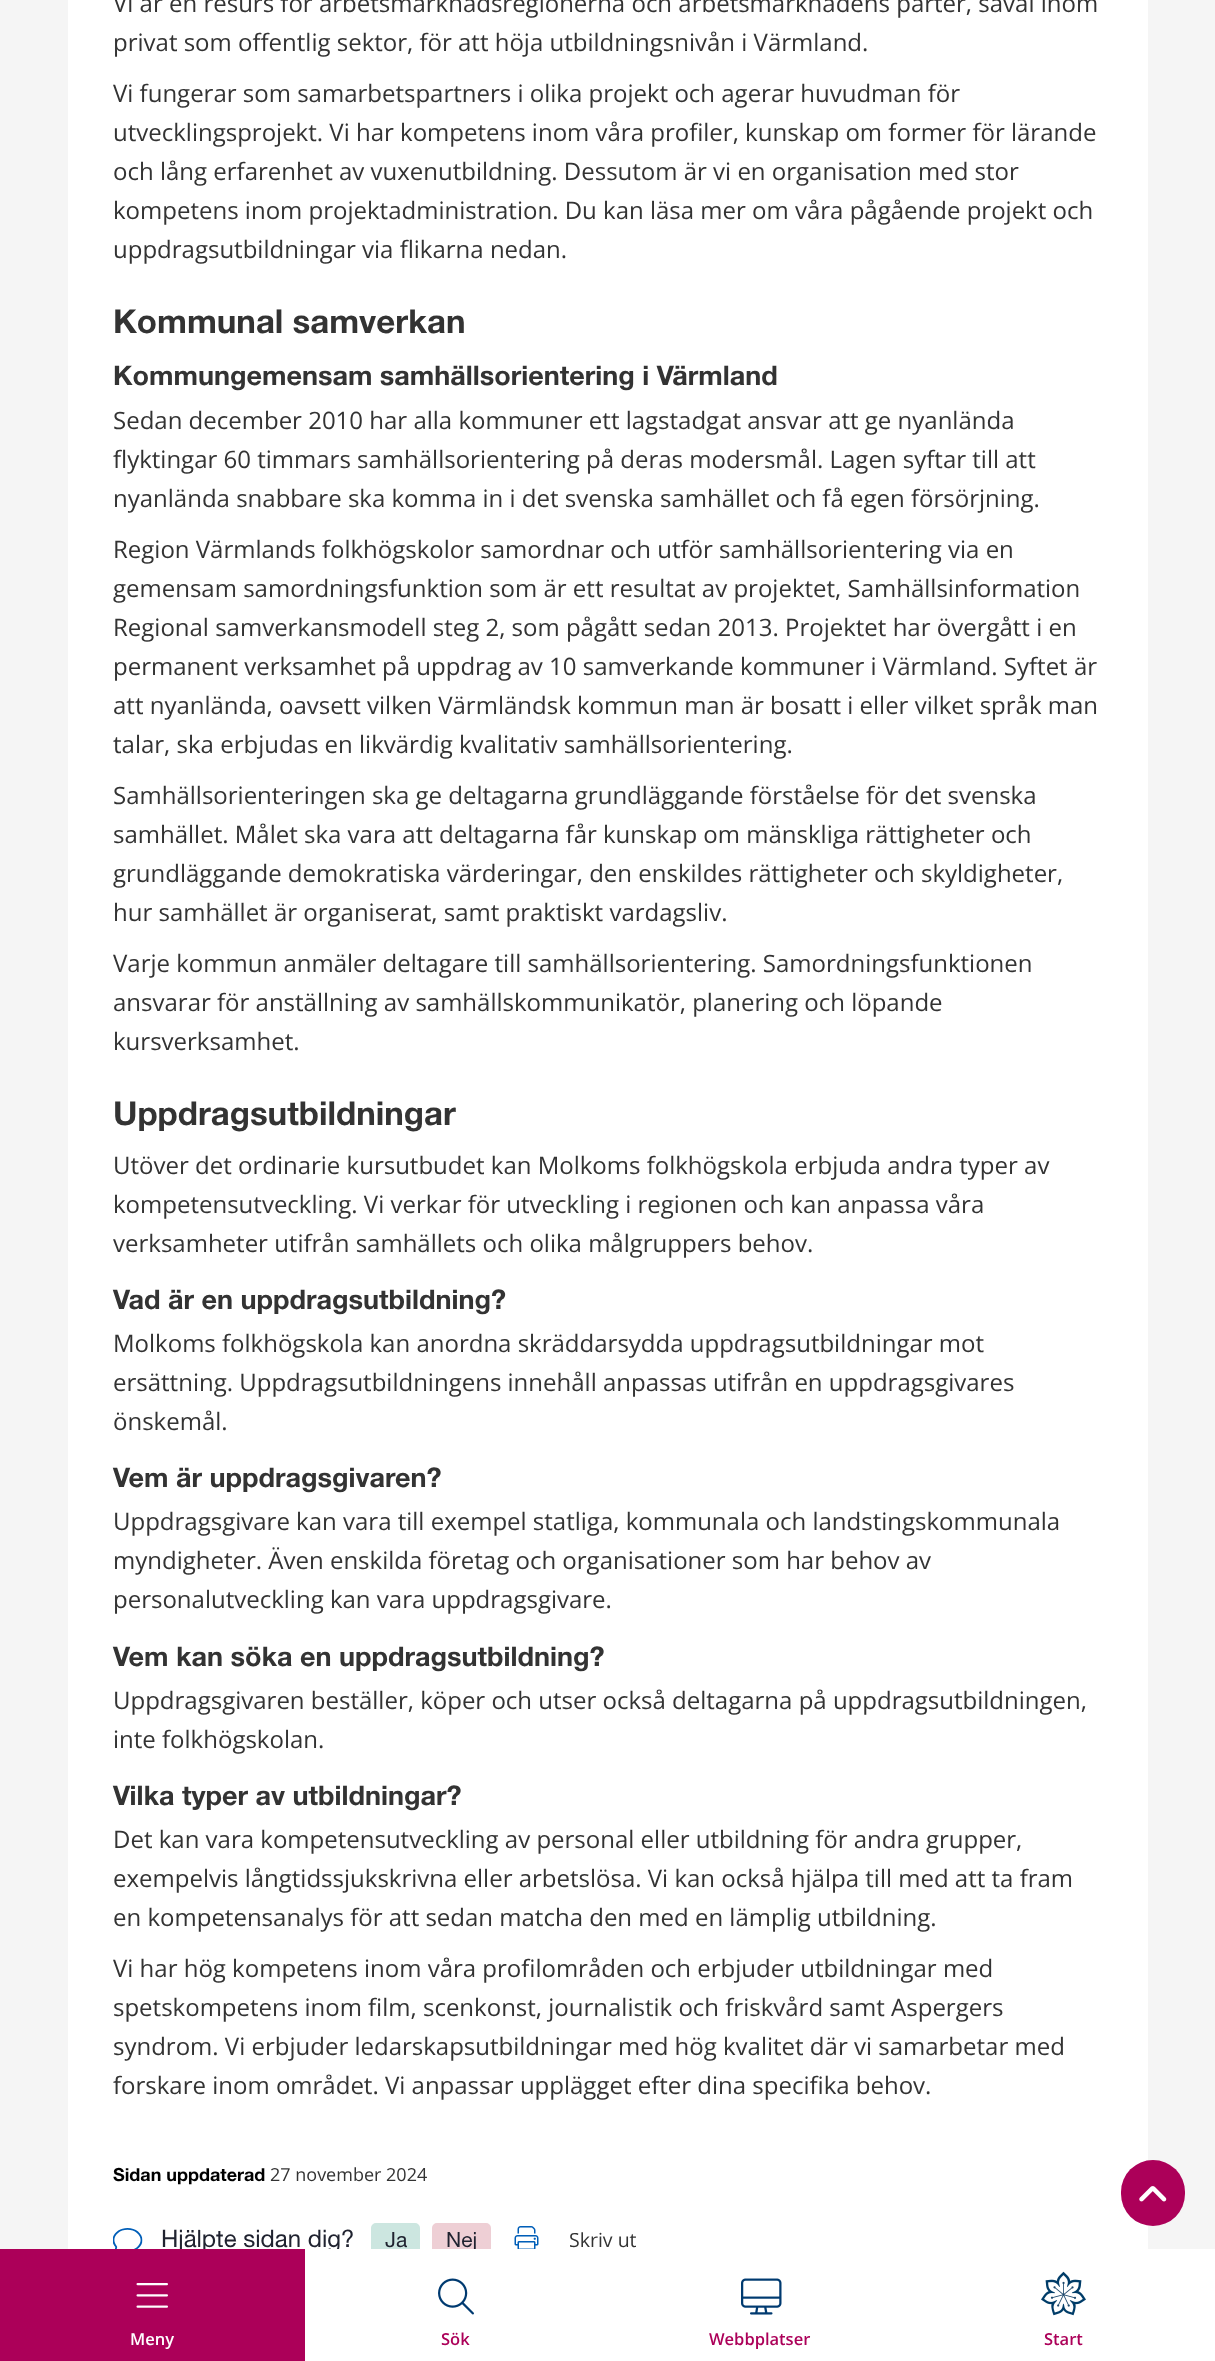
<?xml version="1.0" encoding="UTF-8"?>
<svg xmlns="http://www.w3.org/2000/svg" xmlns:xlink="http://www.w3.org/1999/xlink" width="1215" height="2361">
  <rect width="100%" height="100%" fill="#f5f5f5" />
  <rect x="68" width="1080" height="2249" fill="#ffffff" />
  <image x="113" y="2228" width="30" height="21" xlink:href="image1.png" />
  <rect x="372" y="2224" width="47" height="34" rx="4" fill="#cce6e0" stroke="#cce6e0" stroke-width="2" />
  <rect x="433" y="2224" width="57" height="34" rx="4" fill="#eecfd5" stroke="#eecfd5" stroke-width="2" />
  <image x="514" y="2226" width="25" height="23" xlink:href="image2.png" />
  <rect x="1121" y="2160" width="64" height="66" rx="32" fill="#ac0059" />
  <image x="1139" y="2186" width="28" height="16" xlink:href="image3.png" />
  <text x="113" y="12" style="font-family: Open Sans; font-size: 24px; fill: #333333">Vi är en resurs för arbetsmarknadsregionerna och arbetsmarknadens parter, såväl inom</text>
  <text x="113" y="51" style="font-family: Open Sans; font-size: 24px; fill: #333333">privat som offentlig sektor, för att höja utbildningsnivån i Värmland.</text>
  <text x="113" y="102" style="font-family: Open Sans; font-size: 24px; fill: #333333">Vi fungerar som samarbetspartners i olika projekt och agerar huvudman för</text>
  <text x="113" y="141" style="font-family: Open Sans; font-size: 24px; fill: #333333">utvecklingsprojekt. Vi har kompetens inom våra profiler, kunskap om former för lärande</text>
  <text x="113" y="180" style="font-family: Open Sans; font-size: 24px; fill: #333333">och lång erfarenhet av vuxenutbildning. Dessutom är vi en organisation med stor</text>
  <text x="113" y="219" style="font-family: Open Sans; font-size: 24px; fill: #333333">kompetens inom projektadministration. Du kan läsa mer om våra pågående projekt och</text>
  <text x="113" y="258" style="font-family: Open Sans; font-size: 24px; fill: #333333">uppdragsutbildningar via flikarna nedan.</text>
  <text x="113" y="333" style="font-family: helvetica neue; font-size: 33px; fill: #333333">Kommunal samverkan</text>
  <text x="113" y="385" style="font-family: helvetica neue; font-size: 27px; fill: #333333">Kommungemensam samhällsorientering i Värmland</text>
  <text x="113" y="429" style="font-family: Open Sans; font-size: 24px; fill: #333333">Sedan december 2010 har alla kommuner ett lagstadgat ansvar att ge nyanlända</text>
  <text x="113" y="468" style="font-family: Open Sans; font-size: 24px; fill: #333333">flyktingar 60 timmars samhällsorientering på deras modersmål. Lagen syftar till att</text>
  <text x="113" y="507" style="font-family: Open Sans; font-size: 24px; fill: #333333">nyanlända snabbare ska komma in i det svenska samhället och få egen försörjning.</text>
  <text x="113" y="558" style="font-family: Open Sans; font-size: 24px; fill: #333333">Region Värmlands folkhögskolor samordnar och utför samhällsorientering via en</text>
  <text x="113" y="597" style="font-family: Open Sans; font-size: 24px; fill: #333333">gemensam samordningsfunktion som är ett resultat av projektet, Samhällsinformation</text>
  <text x="113" y="636" style="font-family: Open Sans; font-size: 24px; fill: #333333">Regional samverkansmodell steg 2, som pågått sedan 2013. Projektet har övergått i en</text>
  <text x="113" y="675" style="font-family: Open Sans; font-size: 24px; fill: #333333">permanent verksamhet på uppdrag av 10 samverkande kommuner i Värmland. Syftet är</text>
  <text x="113" y="714" style="font-family: Open Sans; font-size: 24px; fill: #333333">att nyanlända, oavsett vilken Värmländsk kommun man är bosatt i eller vilket språk man</text>
  <text x="113" y="753" style="font-family: Open Sans; font-size: 24px; fill: #333333">talar, ska erbjudas en likvärdig kvalitativ samhällsorientering.</text>
  <text x="113" y="804" style="font-family: Open Sans; font-size: 24px; fill: #333333">Samhällsorienteringen ska ge deltagarna grundläggande förståelse för det svenska</text>
  <text x="113" y="843" style="font-family: Open Sans; font-size: 24px; fill: #333333">samhället. Målet ska vara att deltagarna får kunskap om mänskliga rättigheter och</text>
  <text x="113" y="882" style="font-family: Open Sans; font-size: 24px; fill: #333333">grundläggande demokratiska värderingar, den enskildes rättigheter och skyldigheter,</text>
  <text x="113" y="921" style="font-family: Open Sans; font-size: 24px; fill: #333333">hur samhället är organiserat, samt praktiskt vardagsliv.</text>
  <text x="113" y="972" style="font-family: Open Sans; font-size: 24px; fill: #333333">Varje kommun anmäler deltagare till samhällsorientering. Samordningsfunktionen</text>
  <text x="113" y="1011" style="font-family: Open Sans; font-size: 24px; fill: #333333">ansvarar för anställning av samhällskommunikatör, planering och löpande</text>
  <text x="113" y="1050" style="font-family: Open Sans; font-size: 24px; fill: #333333">kursverksamhet.</text>
  <text x="113" y="1125" style="font-family: helvetica neue; font-size: 33px; fill: #333333">Uppdragsutbildningar</text>
  <text x="113" y="1174" style="font-family: Open Sans; font-size: 24px; fill: #333333">Utöver det ordinarie kursutbudet kan Molkoms folkhögskola erbjuda andra typer av</text>
  <text x="113" y="1213" style="font-family: Open Sans; font-size: 24px; fill: #333333">kompetensutveckling. Vi verkar för utveckling i regionen och kan anpassa våra</text>
  <text x="113" y="1252" style="font-family: Open Sans; font-size: 24px; fill: #333333">verksamheter utifrån samhällets och olika målgruppers behov.</text>
  <text x="113" y="1309" style="font-family: helvetica neue; font-size: 27px; fill: #333333">Vad är en uppdragsutbildning?</text>
  <text x="113" y="1352" style="font-family: Open Sans; font-size: 24px; fill: #333333">Molkoms folkhögskola kan anordna skräddarsydda uppdragsutbildningar mot</text>
  <text x="113" y="1391" style="font-family: Open Sans; font-size: 24px; fill: #333333">ersättning. Uppdragsutbildningens innehåll anpassas utifrån en uppdragsgivares</text>
  <text x="113" y="1430" style="font-family: Open Sans; font-size: 24px; fill: #333333">önskemål.</text>
  <text x="113" y="1487" style="font-family: helvetica neue; font-size: 27px; fill: #333333">Vem är uppdragsgivaren?</text>
  <text x="113" y="1530" style="font-family: Open Sans; font-size: 24px; fill: #333333">Uppdragsgivare kan vara till exempel statliga, kommunala och landstingskommunala</text>
  <text x="113" y="1569" style="font-family: Open Sans; font-size: 24px; fill: #333333">myndigheter. Även enskilda företag och organisationer som har behov av</text>
  <text x="113" y="1608" style="font-family: Open Sans; font-size: 24px; fill: #333333">personalutveckling kan vara uppdragsgivare.</text>
  <text x="113" y="1666" style="font-family: helvetica neue; font-size: 27px; fill: #333333">Vem kan söka en uppdragsutbildning?</text>
  <text x="113" y="1709" style="font-family: Open Sans; font-size: 24px; fill: #333333">Uppdragsgivaren beställer, köper och utser också deltagarna på uppdragsutbildningen,</text>
  <text x="113" y="1748" style="font-family: Open Sans; font-size: 24px; fill: #333333">inte folkhögskolan.</text>
  <text x="113" y="1805" style="font-family: helvetica neue; font-size: 27px; fill: #333333">Vilka typer av utbildningar?</text>
  <text x="113" y="1848" style="font-family: Open Sans; font-size: 24px; fill: #333333">Det kan vara kompetensutveckling av personal eller utbildning för andra grupper,</text>
  <text x="113" y="1887" style="font-family: Open Sans; font-size: 24px; fill: #333333">exempelvis långtidssjukskrivna eller arbetslösa. Vi kan också hjälpa till med att ta fram</text>
  <text x="113" y="1926" style="font-family: Open Sans; font-size: 24px; fill: #333333">en kompetensanalys för att sedan matcha den med en lämplig utbildning.</text>
  <text x="113" y="1977" style="font-family: Open Sans; font-size: 24px; fill: #333333">Vi har hög kompetens inom våra profilområden och erbjuder utbildningar med</text>
  <text x="113" y="2016" style="font-family: Open Sans; font-size: 24px; fill: #333333">spetskompetens inom film, scenkonst, journalistik och friskvård samt Aspergers</text>
  <text x="113" y="2055" style="font-family: Open Sans; font-size: 24px; fill: #333333">syndrom. Vi erbjuder ledarskapsutbildningar med hög kvalitet där vi samarbetar med</text>
  <text x="113" y="2094" style="font-family: Open Sans; font-size: 24px; fill: #333333">forskare inom området. Vi anpassar upplägget efter dina specifika behov.</text>
  <text x="113" y="2181" style="font-family: helvetica neue; font-size: 18px; fill: #000000">Sidan uppdaterad</text>
  <text x="270" y="2181" style="font-family: Open Sans; font-size: 18px; fill: #333333">27 november 2024</text>
  <text x="161" y="2247" style="font-family: 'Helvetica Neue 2'; font-size: 24px; fill: #202330">Hjälpte sidan dig?</text>
  <text x="385" y="2247" style="font-family: 'Helvetica Neue 2'; font-size: 21px; fill: #202330">Ja</text>
  <text x="446" y="2247" style="font-family: 'Helvetica Neue 2'; font-size: 21px; fill: #202330">Nej</text>
  <text x="569" y="2247" style="font-family: Open Sans; font-size: 19.5px; fill: #333333">Skriv ut</text>
  <rect x="305" y="2249" width="910" height="112" fill="#ffffff" />
  <rect y="2249" width="305" height="112" fill="#ac0059" />
  <image x="136" y="2283" width="32" height="25" xlink:href="image4.png" />
  <text x="130" y="2345" style="font-family: Open Sans; font-size: 16.5px; font-weight: 600; fill: #ffffff">Meny</text>
  <image x="438" y="2278" width="36" height="37" xlink:href="image5.png" />
  <text x="441" y="2345" style="font-family: Open Sans; font-size: 16.5px; font-weight: 600; fill: #ac0059">Sök</text>
  <image x="741" y="2278" width="41" height="37" xlink:href="image6.png" />
  <text x="709" y="2345" style="font-family: Open Sans; font-size: 16.5px; font-weight: 600; fill: #ac0059">Webbplatser</text>
  <image x="1041" y="2271" width="45" height="45" xlink:href="image7.png" />
  <text x="1044" y="2345" style="font-family: Open Sans; font-size: 16.5px; font-weight: 600; fill: #ac0059">Start</text>
</svg>
